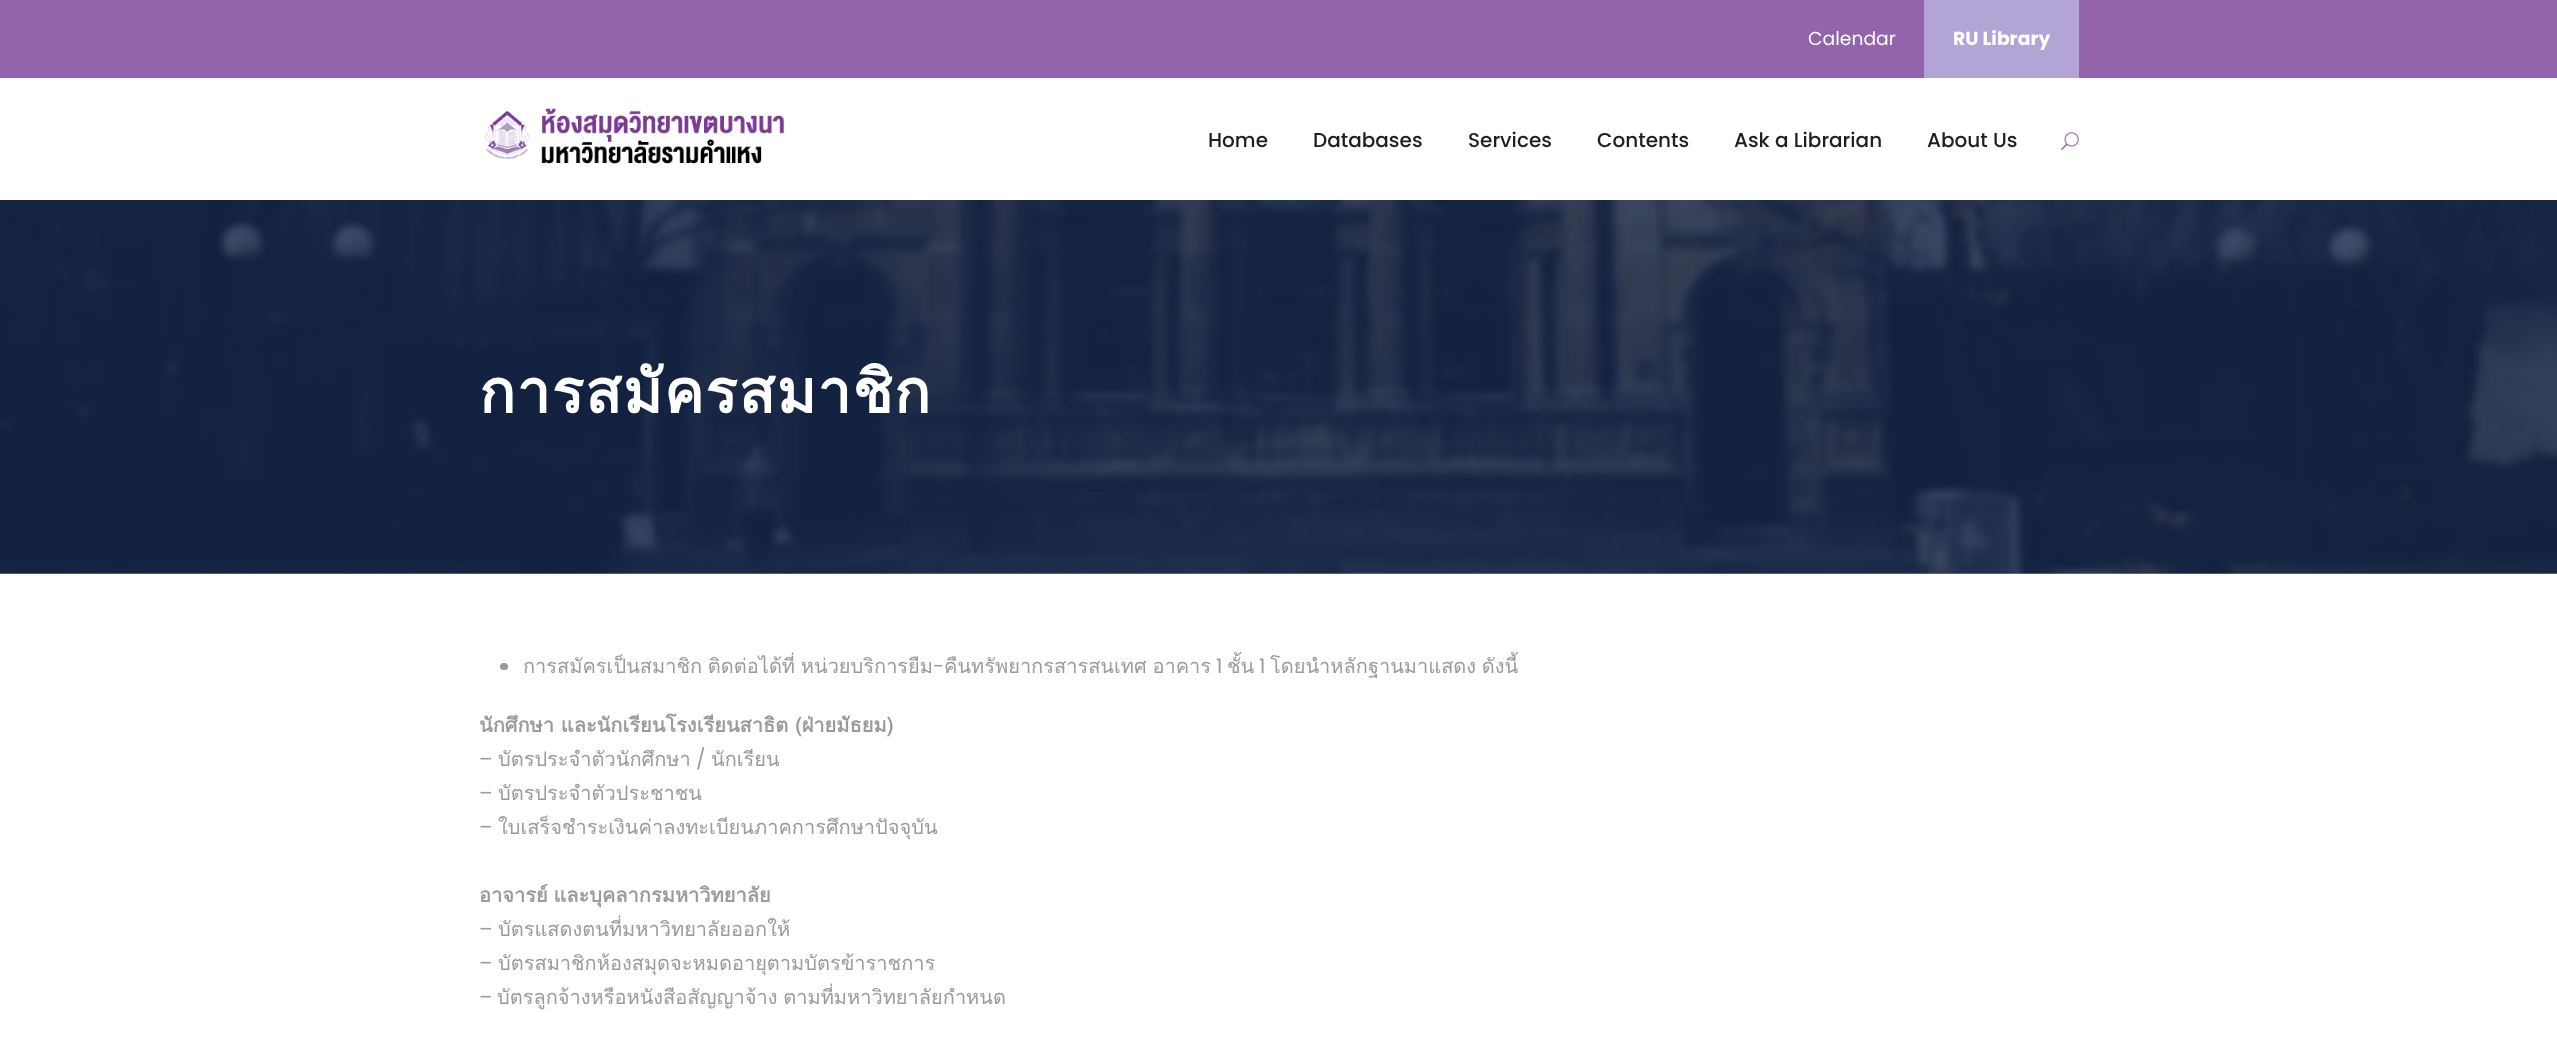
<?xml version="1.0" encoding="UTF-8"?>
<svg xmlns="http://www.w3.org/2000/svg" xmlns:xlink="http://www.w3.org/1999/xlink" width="2557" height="1053">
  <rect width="100%" height="100%" fill="#ffffff" />
  <rect width="2557" height="78" fill="#9364ac" />
  <rect x="1924" width="155" height="78" fill="#b2a4d5" />
  <image x="485" y="108" width="300" height="56" xlink:href="image1.png" />
  <image x="2061" y="132" width="18" height="18" xlink:href="image2.png" />
  <image x="0" y="200" width="2557" height="374" xlink:href="image3.png" />
  <rect x="500" y="663" width="8" height="7" rx="3.5" fill="#9b9b9b" />
  <text x="1808" y="45" style="font-family: Poppins; font-size: 18.75px; fill: #ffffff">Calendar</text>
  <text x="1953" y="45" style="font-family: Poppins; font-size: 18.75px; font-weight: bold; fill: #ffffff">RU Library</text>
  <text x="1208" y="147" style="font-family: Poppins; font-size: 20px; font-weight: 500; fill: #1f1f1f">Home</text>
  <text x="1313" y="147" style="font-family: Poppins; font-size: 20px; font-weight: 500; fill: #1f1f1f">Databases</text>
  <text x="1468" y="147" style="font-family: Poppins; font-size: 20px; font-weight: 500; fill: #1f1f1f">Services</text>
  <text x="1597" y="147" style="font-family: Poppins; font-size: 20px; font-weight: 500; fill: #1f1f1f">Contents</text>
  <text x="1734" y="147" style="font-family: Poppins; font-size: 20px; font-weight: 500; fill: #1f1f1f">Ask a Librarian</text>
  <text x="1927" y="147" style="font-family: Poppins; font-size: 20px; font-weight: 500; fill: #1f1f1f">About Us</text>
  <text x="479" y="413" style="font-family: Loma; font-size: 60px; font-weight: bold; letter-spacing: 1.25px; fill: #ffffff">การสมัครสมาชิก</text>
  <text x="523" y="673" word-spacing="-1" style="font-family: Loma; font-size: 20px; fill: #9b9b9b">การสมัครเป็นสมาชิก ติดต่อได้ที่ หน่วยบริการยืม</text>
  <text x="1216" y="673" style="font-family: Poppins; font-size: 20px; fill: #9b9b9b">1</text>
  <text x="1227" y="673" style="font-family: Loma; font-size: 20px; fill: #9b9b9b">ชั้น</text>
  <text x="1259" y="673" style="font-family: Poppins; font-size: 20px; fill: #9b9b9b">1</text>
  <text x="1270" y="673" word-spacing="-1" style="font-family: Loma; font-size: 20px; fill: #9b9b9b">โดยนำหลักฐานมาแสดง ดังนี้</text>
  <text x="933" y="673" style="font-family: Poppins; font-size: 20px; fill: #9b9b9b">-</text>
  <text x="944" y="673" word-spacing="-1" style="font-family: Loma; font-size: 20px; fill: #9b9b9b">คืนทรัพยากรสารสนเทศ อาคาร</text>
  <text x="479" y="732" style="font-family: Loma; font-size: 20px; font-weight: bold; fill: #9b9b9b">นักศึกษา และนักเรียนโรงเรียนสาธิต (ฝ่ายมัธยม)</text>
  <text x="479" y="766" style="font-family: Poppins; font-size: 20px; fill: #9b9b9b">–</text>
  <text x="498" y="766" style="font-family: Loma; font-size: 20px; fill: #9b9b9b">บัตรประจำตัวนักศึกษา</text>
  <text x="696" y="766" style="font-family: Poppins; font-size: 20px; fill: #9b9b9b">/</text>
  <text x="711" y="766" style="font-family: Loma; font-size: 20px; fill: #9b9b9b">นักเรียน</text>
  <text x="479" y="800" style="font-family: Poppins; font-size: 20px; fill: #9b9b9b">–</text>
  <text x="498" y="800" style="font-family: Loma; font-size: 20px; fill: #9b9b9b">บัตรประจำตัวประชาชน</text>
  <text x="479" y="834" style="font-family: Poppins; font-size: 20px; fill: #9b9b9b">–</text>
  <text x="498" y="834" style="font-family: Loma; font-size: 20px; fill: #9b9b9b">ใบเสร็จชำระเงินค่าลงทะเบียนภาคการศึกษาปัจจุบัน</text>
  <text x="479" y="902" word-spacing="-1" style="font-family: Loma; font-size: 20px; font-weight: bold; fill: #9b9b9b">อาจารย์ และบุคลากรมหาวิทยาลัย</text>
  <text x="479" y="936" style="font-family: Poppins; font-size: 20px; fill: #9b9b9b">–</text>
  <text x="498" y="936" style="font-family: Loma; font-size: 20px; fill: #9b9b9b">บัตรแสดงตนที่มหาวิทยาลัยออกให้</text>
  <text x="479" y="970" style="font-family: Poppins; font-size: 20px; fill: #9b9b9b">–</text>
  <text x="498" y="970" style="font-family: Loma; font-size: 20px; fill: #9b9b9b">บัตรสมาชิกห้องสมุดจะหมดอายุตามบัตรข้าราชการ</text>
  <text x="479" y="1004" style="font-family: Poppins; font-size: 20px; fill: #9b9b9b">–</text>
  <text x="497" y="1004" word-spacing="-1" style="font-family: Loma; font-size: 20px; fill: #9b9b9b">บัตรลูกจ้างหรือหนังสือสัญญาจ้าง ตามที่มหาวิทยาลัยกำหนด</text>
</svg>
